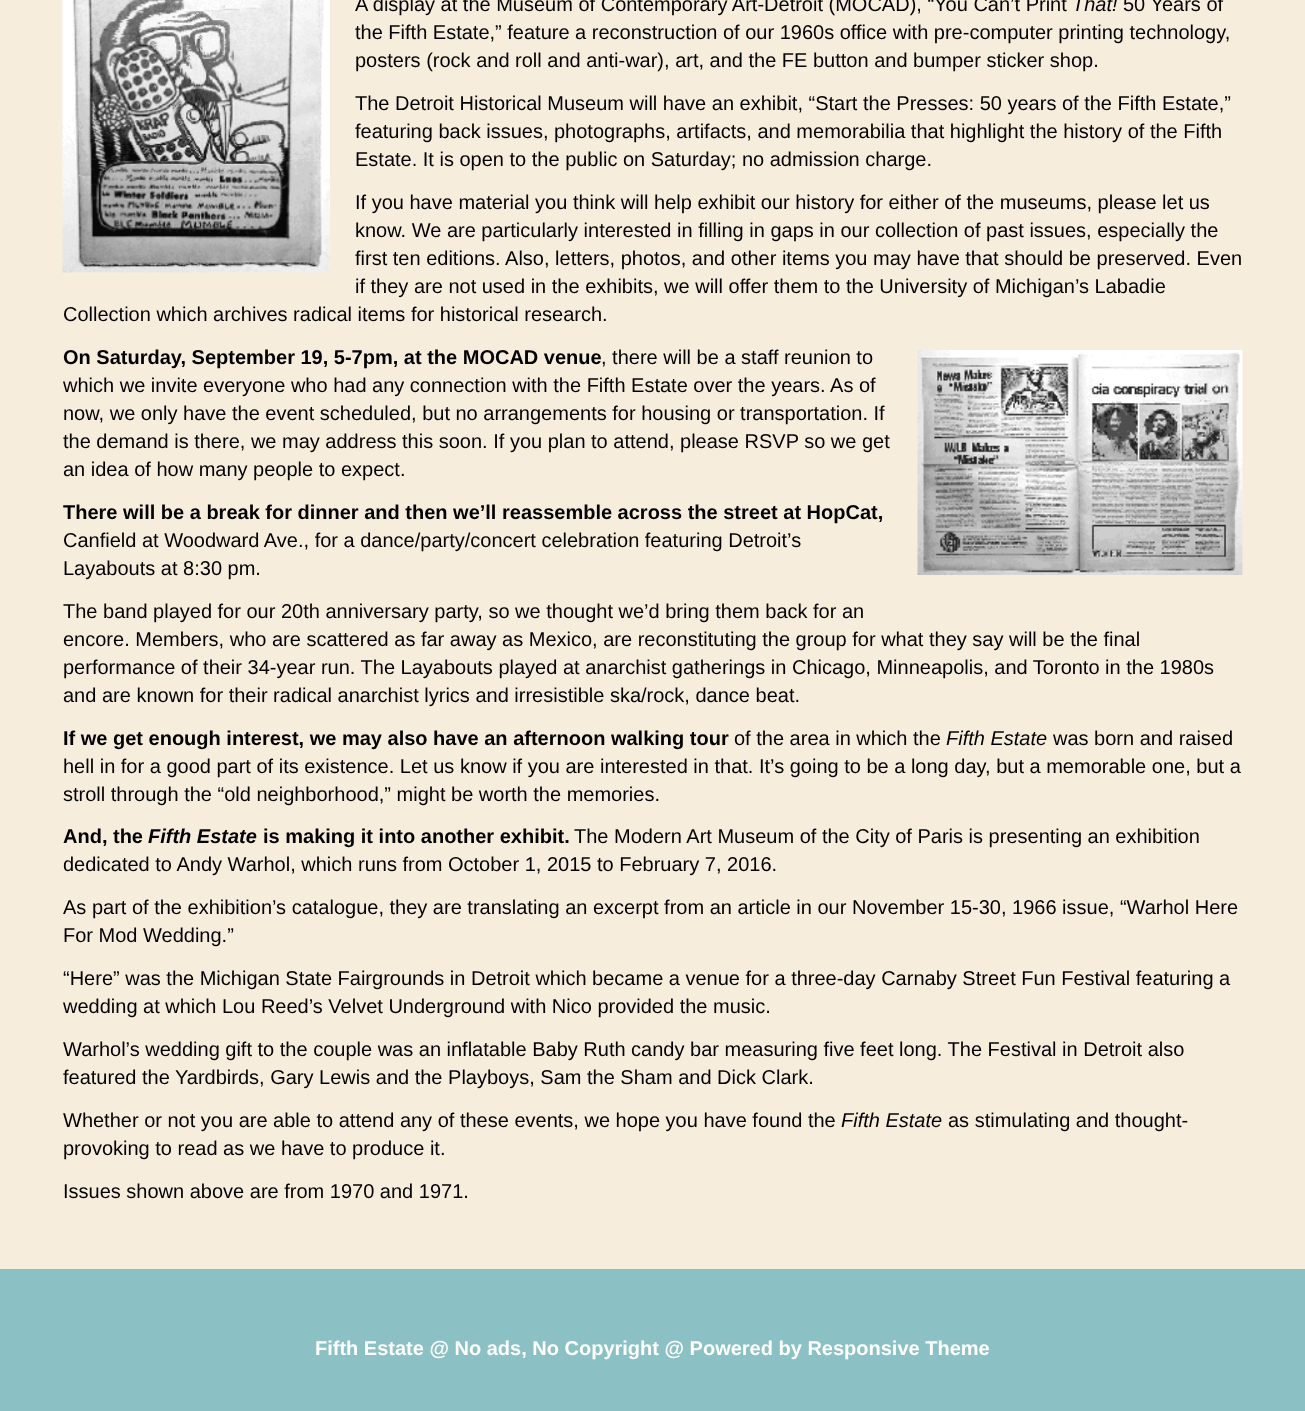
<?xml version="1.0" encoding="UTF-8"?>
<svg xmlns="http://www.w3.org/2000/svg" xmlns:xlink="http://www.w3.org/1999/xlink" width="1305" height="1411">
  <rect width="100%" height="100%" fill="#f7eddc" />
  <image x="62" y="0" width="268" height="273" xlink:href="image1.png" />
  <image x="917" y="350" width="326" height="225" xlink:href="image2.png" />
  <rect y="1269" width="1305" height="142" fill="#8bc0c4" />
  <text x="355" y="11" style="font-family: Liberation Sans; font-size: 20px; fill: #000000">A display at the Museum of Contemporary Art-Detroit (MOCAD), “You Can’t Print</text>
  <text x="1072" y="11" style="font-family: Liberation Sans; font-size: 20px; font-style: italic; fill: #000000">That!</text>
  <text x="1123" y="11" style="font-family: Liberation Sans; font-size: 20px; fill: #000000">50 Years of</text>
  <text x="355" y="39" style="font-family: Liberation Sans; font-size: 20px; fill: #000000">the Fifth Estate,” feature a reconstruction of our 1960s office with pre-computer printing technology,</text>
  <text x="355" y="67" style="font-family: Liberation Sans; font-size: 20px; fill: #000000">posters (rock and roll and anti-war), art, and the FE button and bumper sticker shop.</text>
  <text x="355" y="110" style="font-family: Liberation Sans; font-size: 20px; fill: #000000">The Detroit Historical Museum will have an exhibit, “Start the Presses: 50 years of the Fifth Estate,”</text>
  <text x="355" y="138" style="font-family: Liberation Sans; font-size: 20px; fill: #000000">featuring back issues, photographs, artifacts, and memorabilia that highlight the history of the Fifth</text>
  <text x="355" y="166" style="font-family: Liberation Sans; font-size: 20px; fill: #000000">Estate. It is open to the public on Saturday; no admission charge.</text>
  <text x="355" y="209" style="font-family: Liberation Sans; font-size: 20px; fill: #000000">If you have material you think will help exhibit our history for either of the museums, please let us</text>
  <text x="355" y="237" style="font-family: Liberation Sans; font-size: 20px; fill: #000000">know. We are particularly interested in filling in gaps in our collection of past issues, especially the</text>
  <text x="355" y="265" style="font-family: Liberation Sans; font-size: 20px; fill: #000000">first ten editions. Also, letters, photos, and other items you may have that should be preserved. Even</text>
  <text x="355" y="293" style="font-family: Liberation Sans; font-size: 20px; fill: #000000">if they are not used in the exhibits, we will offer them to the University of Michigan’s Labadie</text>
  <text x="63" y="321" style="font-family: Liberation Sans; font-size: 20px; fill: #000000">Collection which archives radical items for historical research.</text>
  <text x="63" y="364" style="font-family: Liberation Sans; font-size: 20px; font-weight: bold; fill: #000000">On Saturday, September 19, 5-7pm, at the MOCAD venue</text>
  <text x="601" y="364" style="font-family: Liberation Sans; font-size: 20px; fill: #000000">, there will be a staff reunion to</text>
  <text x="63" y="392" style="font-family: Liberation Sans; font-size: 20px; fill: #000000">which we invite everyone who had any connection with the Fifth Estate over the years. As of</text>
  <text x="63" y="420" style="font-family: Liberation Sans; font-size: 20px; fill: #000000">now, we only have the event scheduled, but no arrangements for housing or transportation. If</text>
  <text x="63" y="448" style="font-family: Liberation Sans; font-size: 20px; fill: #000000">the demand is there, we may address this soon. If you plan to attend, please RSVP so we get</text>
  <text x="63" y="476" style="font-family: Liberation Sans; font-size: 20px; fill: #000000">an idea of how many people to expect.</text>
  <text x="63" y="519" style="font-family: Liberation Sans; font-size: 20px; font-weight: bold; fill: #000000">There will be a break for dinner and then we’ll reassemble across the street at HopCat,</text>
  <text x="63" y="547" style="font-family: Liberation Sans; font-size: 20px; fill: #000000">Canfield at Woodward Ave., for a dance/party/concert celebration featuring Detroit’s</text>
  <text x="63" y="575" style="font-family: Liberation Sans; font-size: 20px; fill: #000000">Layabouts at 8:30 pm.</text>
  <text x="63" y="618" style="font-family: Liberation Sans; font-size: 20px; fill: #000000">The band played for our 20th anniversary party, so we thought we’d bring them back for an</text>
  <text x="63" y="646" style="font-family: Liberation Sans; font-size: 20px; fill: #000000">encore. Members, who are scattered as far away as Mexico, are reconstituting the group for what they say will be the final</text>
  <text x="63" y="674" style="font-family: Liberation Sans; font-size: 20px; fill: #000000">performance of their 34-year run. The Layabouts played at anarchist gatherings in Chicago, Minneapolis, and Toronto in the 1980s</text>
  <text x="63" y="702" style="font-family: Liberation Sans; font-size: 20px; fill: #000000">and are known for their radical anarchist lyrics and irresistible ska/rock, dance beat.</text>
  <text x="63" y="745" style="font-family: Liberation Sans; font-size: 20px; font-weight: bold; fill: #000000">If we get enough interest, we may also have an afternoon walking tour</text>
  <text x="734" y="745" style="font-family: Liberation Sans; font-size: 20px; fill: #000000">of the area in which the</text>
  <text x="946" y="745" style="font-family: Liberation Sans; font-size: 20px; font-style: italic; fill: #000000">Fifth Estate</text>
  <text x="1053" y="745" style="font-family: Liberation Sans; font-size: 20px; fill: #000000">was born and raised</text>
  <text x="63" y="773" style="font-family: Liberation Sans; font-size: 20px; fill: #000000">hell in for a good part of its existence. Let us know if you are interested in that. It’s going to be a long day, but a memorable one, but a</text>
  <text x="63" y="801" style="font-family: Liberation Sans; font-size: 20px; fill: #000000">stroll through the “old neighborhood,” might be worth the memories.</text>
  <text x="63" y="843" style="font-family: Liberation Sans; font-size: 20px; font-weight: bold; fill: #000000">And, the</text>
  <text x="148" y="843" style="font-family: Liberation Sans; font-size: 20px; font-weight: bold; font-style: italic; fill: #000000">Fifth Estate</text>
  <text x="263" y="843" style="font-family: Liberation Sans; font-size: 20px; font-weight: bold; fill: #000000">is making it into another exhibit.</text>
  <text x="574" y="843" style="font-family: Liberation Sans; font-size: 20px; fill: #000000">The Modern Art Museum of the City of Paris is presenting an exhibition</text>
  <text x="63" y="871" style="font-family: Liberation Sans; font-size: 20px; fill: #000000">dedicated to Andy Warhol, which runs from October 1, 2015 to February 7, 2016.</text>
  <text x="63" y="914" style="font-family: Liberation Sans; font-size: 20px; fill: #000000">As part of the exhibition’s catalogue, they are translating an excerpt from an article in our November 15-30, 1966 issue, “Warhol Here</text>
  <text x="63" y="942" style="font-family: Liberation Sans; font-size: 20px; fill: #000000">For Mod Wedding.”</text>
  <text x="63" y="985" style="font-family: Liberation Sans; font-size: 20px; fill: #000000">“Here” was the Michigan State Fairgrounds in Detroit which became a venue for a three-day Carnaby Street Fun Festival featuring a</text>
  <text x="63" y="1013" style="font-family: Liberation Sans; font-size: 20px; fill: #000000">wedding at which Lou Reed’s Velvet Underground with Nico provided the music.</text>
  <text x="63" y="1056" style="font-family: Liberation Sans; font-size: 20px; fill: #000000">Warhol’s wedding gift to the couple was an inflatable Baby Ruth candy bar measuring five feet long. The Festival in Detroit also</text>
  <text x="63" y="1084" style="font-family: Liberation Sans; font-size: 20px; fill: #000000">featured the Yardbirds, Gary Lewis and the Playboys, Sam the Sham and Dick Clark.</text>
  <text x="63" y="1127" style="font-family: Liberation Sans; font-size: 20px; fill: #000000">Whether or not you are able to attend any of these events, we hope you have found the</text>
  <text x="841" y="1127" style="font-family: Liberation Sans; font-size: 20px; font-style: italic; fill: #000000">Fifth Estate</text>
  <text x="948" y="1127" style="font-family: Liberation Sans; font-size: 20px; fill: #000000">as stimulating and thought-</text>
  <text x="63" y="1155" style="font-family: Liberation Sans; font-size: 20px; fill: #000000">provoking to read as we have to produce it.</text>
  <text x="63" y="1198" style="font-family: Liberation Sans; font-size: 20px; fill: #000000">Issues shown above are from 1970 and 1971.</text>
  <text x="315" y="1355" style="font-family: Liberation Sans; font-size: 20px; font-weight: bold; fill: #ffffff">Fifth Estate @ No ads, No Copyright @ Powered by Responsive Theme</text>
</svg>
